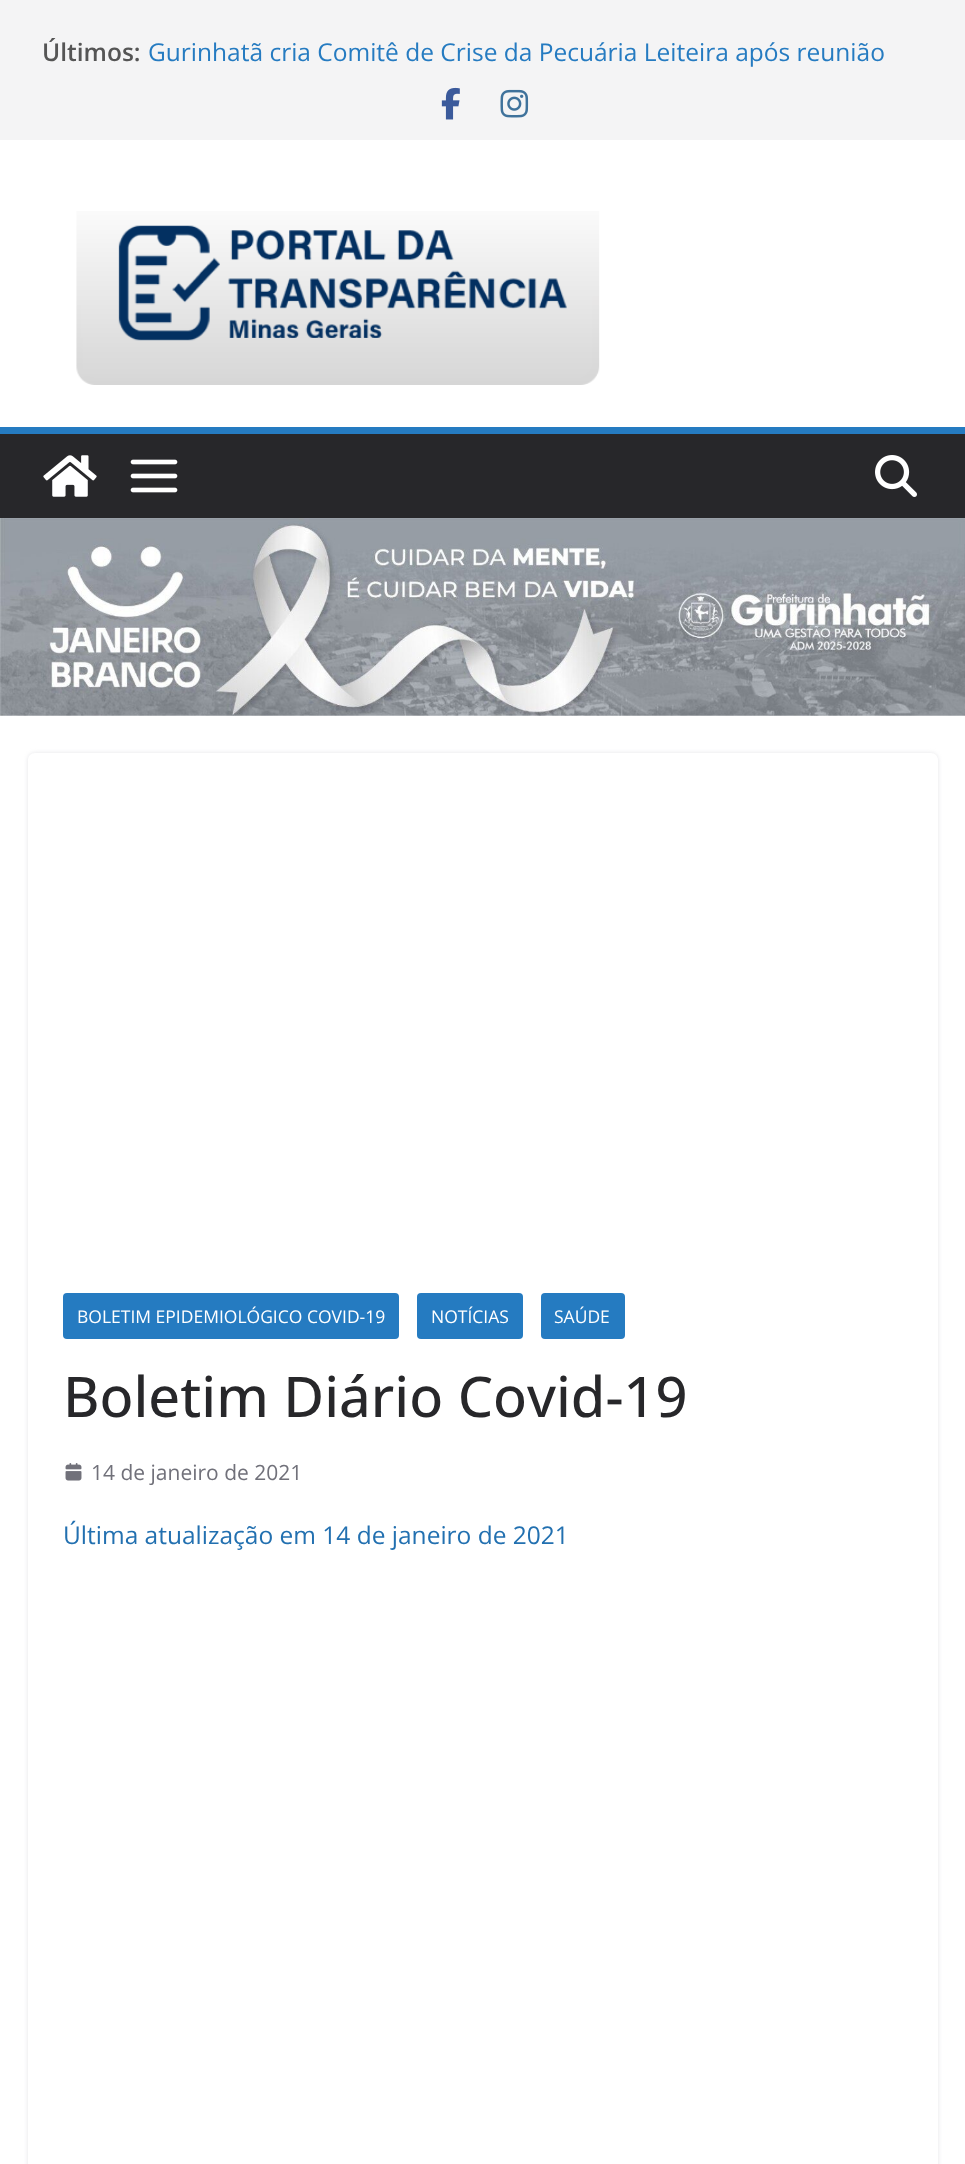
<?xml version="1.0" encoding="UTF-8"?>
<svg xmlns="http://www.w3.org/2000/svg" xmlns:xlink="http://www.w3.org/1999/xlink" width="965" height="2164">
  <defs>
    <clipPath id="clip1"><path d="M 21 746 h 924 v 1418 h -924 z m 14 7 h 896 c 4 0 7 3 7 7 v 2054 c 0 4 -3 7 -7 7 h -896 c -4 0 -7 -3 -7 -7 v -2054 c 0 -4 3 -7 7 -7 z" clip-rule="evenodd" /></clipPath>
  </defs>
  <rect width="100%" height="100%" fill="#ffffff" />
  <rect width="965" height="140" fill="#f4f4f5" />
  <image x="441" y="87" width="19" height="33" xlink:href="image1.png" />
  <image x="500" y="89" width="29" height="29" xlink:href="image2.png" />
  <image x="76" y="211" width="524" height="174" xlink:href="image3.png" />
  <rect y="434" width="965" height="84" fill="#27272a" />
  <rect y="427" width="965" height="7" fill="#257bc1" />
  <image x="43" y="455" width="54" height="42" xlink:href="image4.png" />
  <image x="130" y="459" width="48" height="34" xlink:href="image5.png" />
  <image x="875" y="455" width="42" height="42" xlink:href="image6.png" />
  <image x="0" y="518" width="965" height="198" xlink:href="image7.png" />
  <g clip-path="url(#clip1)">
    <rect x="28" y="753" width="910" height="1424" rx="7" fill="#e4e4e7" filter="blur(2px)" />
  </g>
  <rect x="63" y="1293" width="336" height="46" rx="4" fill="#257bc1" />
  <rect x="417" y="1293" width="106" height="46" rx="4" fill="#257bc1" />
  <rect x="541" y="1293" width="84" height="46" rx="4" fill="#257bc1" />
  <image x="65" y="1463" width="17" height="18" xlink:href="image8.png" />
  <text x="42" y="61" style="font-family: Open Sans; font-size: 24.5px; font-weight: 600; fill: #555555">Últimos:</text>
  <text x="148" y="61" style="font-family: Open Sans; font-size: 24.5px; fill: #257bc1">Gurinhatã cria Comitê de Crise da Pecuária Leiteira após reunião</text>
  <text x="77" y="1323" style="font-family: Open Sans; font-size: 17.5px; fill: #ffffff">BOLETIM EPIDEMIOLÓGICO COVID-19</text>
  <text x="431" y="1323" style="font-family: Open Sans; font-size: 17.5px; fill: #ffffff">NOTÍCIAS</text>
  <text x="554" y="1323" style="font-family: Open Sans; font-size: 17.5px; fill: #ffffff">SAÚDE</text>
  <text x="63" y="1417" style="font-family: Open Sans; font-size: 56px; font-weight: 500; fill: #27272a">Boletim Diário Covid-19</text>
  <text x="91" y="1480" style="font-family: Open Sans; font-size: 21px; fill: #71717a">14 de janeiro de 2021</text>
  <text x="63" y="1544" style="font-family: Open Sans; font-size: 24.5px; fill: #2270b0">Última atualização em 14 de janeiro de 2021</text>
</svg>
